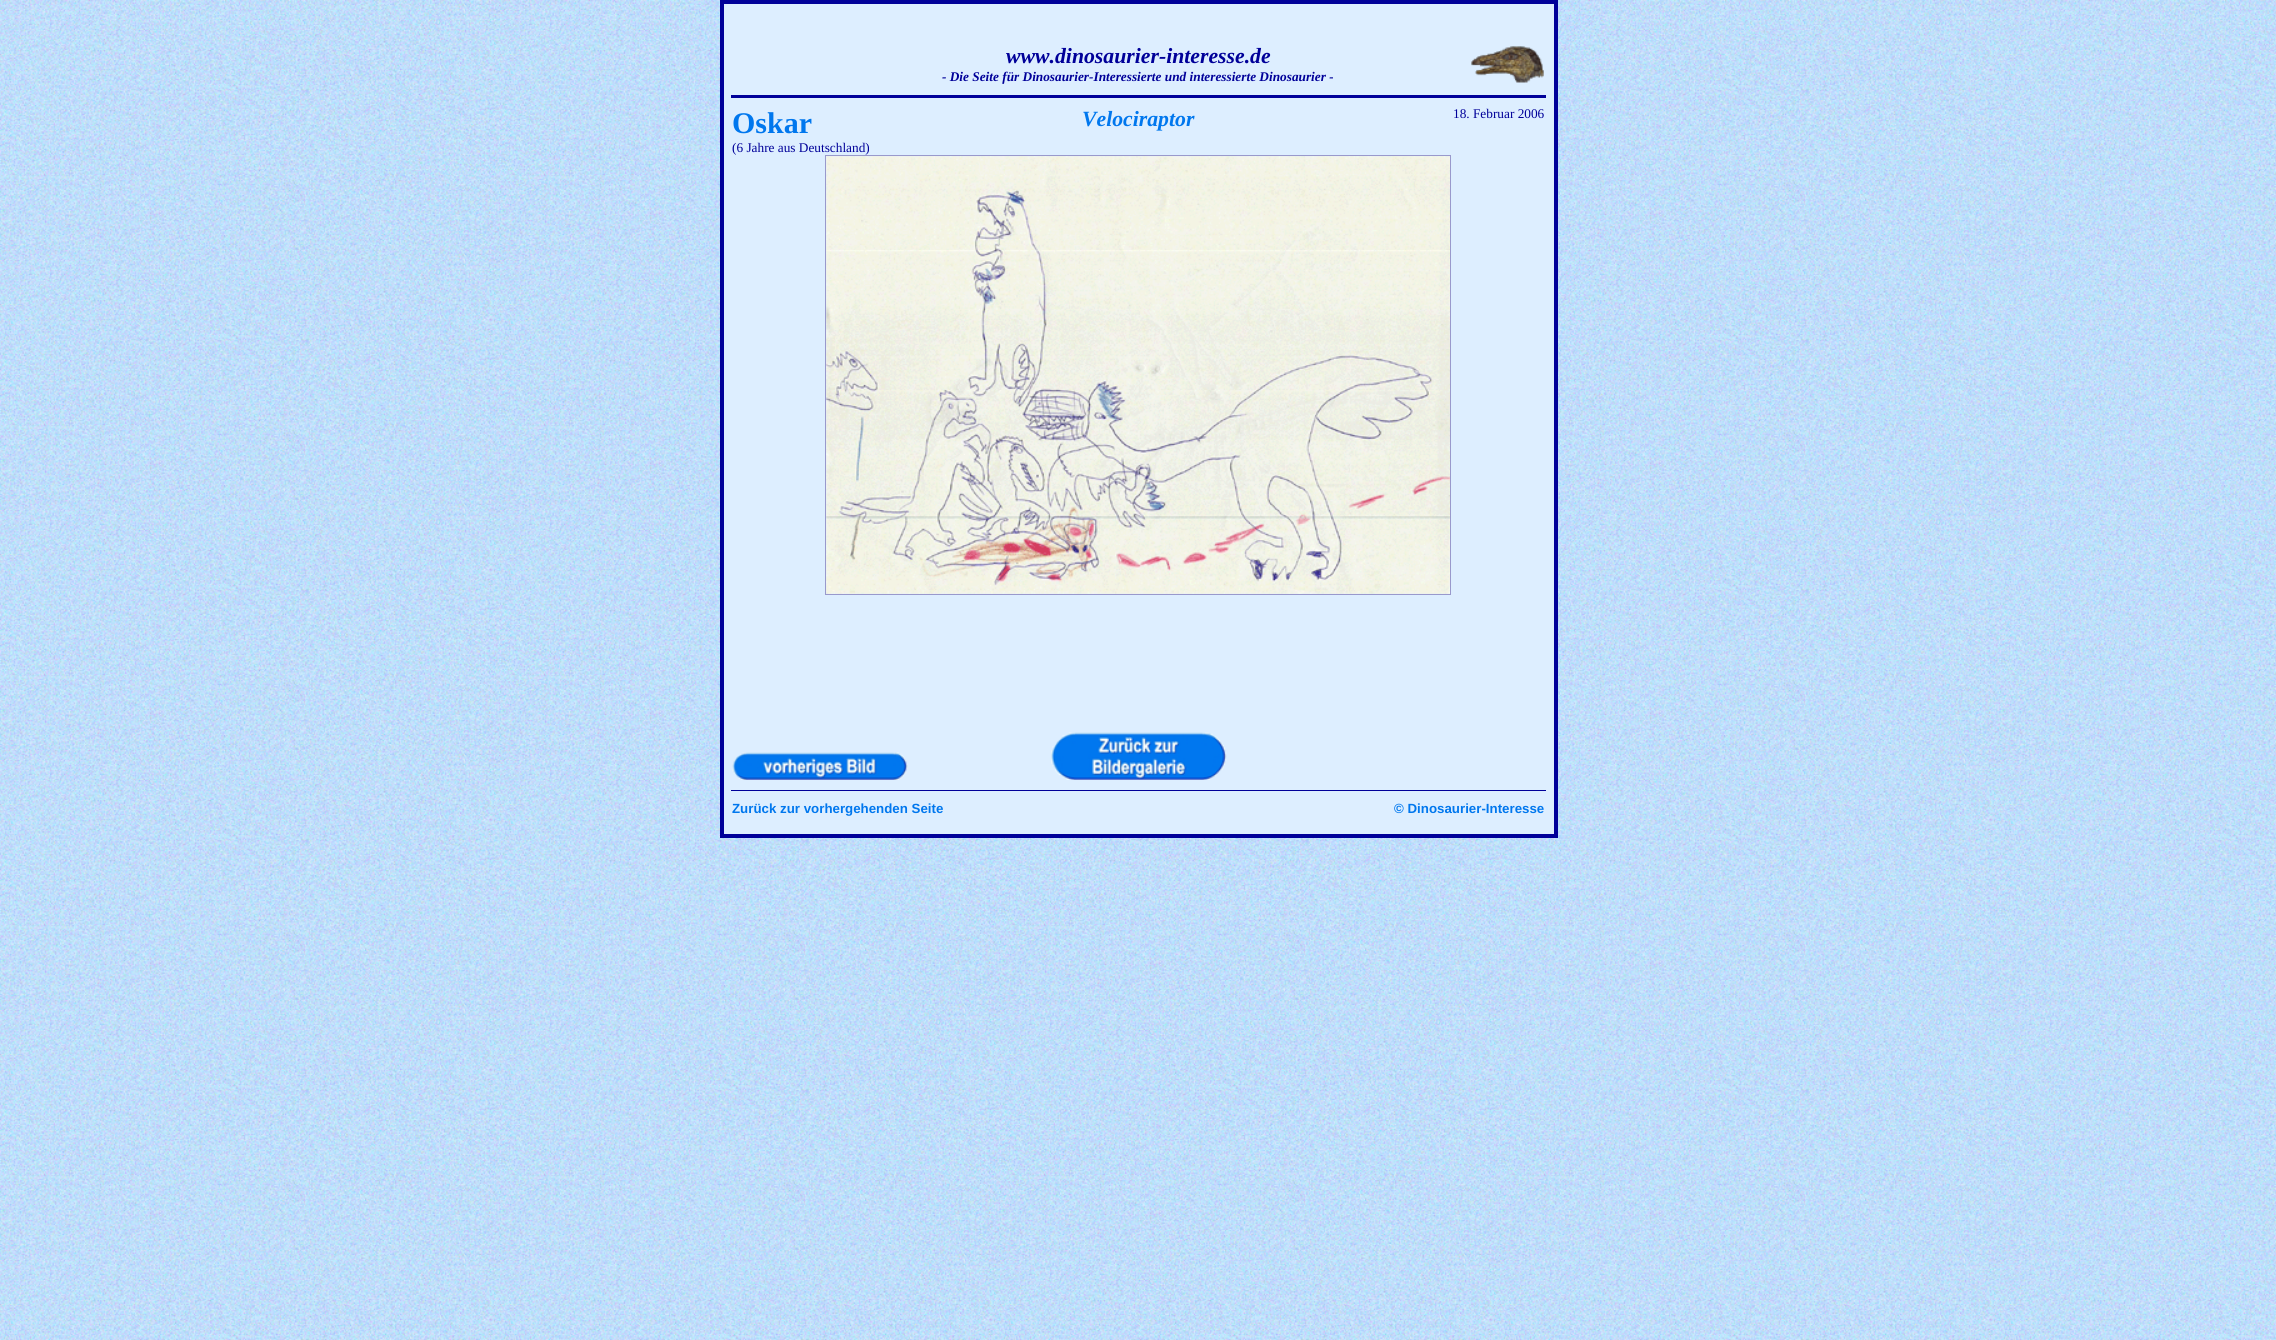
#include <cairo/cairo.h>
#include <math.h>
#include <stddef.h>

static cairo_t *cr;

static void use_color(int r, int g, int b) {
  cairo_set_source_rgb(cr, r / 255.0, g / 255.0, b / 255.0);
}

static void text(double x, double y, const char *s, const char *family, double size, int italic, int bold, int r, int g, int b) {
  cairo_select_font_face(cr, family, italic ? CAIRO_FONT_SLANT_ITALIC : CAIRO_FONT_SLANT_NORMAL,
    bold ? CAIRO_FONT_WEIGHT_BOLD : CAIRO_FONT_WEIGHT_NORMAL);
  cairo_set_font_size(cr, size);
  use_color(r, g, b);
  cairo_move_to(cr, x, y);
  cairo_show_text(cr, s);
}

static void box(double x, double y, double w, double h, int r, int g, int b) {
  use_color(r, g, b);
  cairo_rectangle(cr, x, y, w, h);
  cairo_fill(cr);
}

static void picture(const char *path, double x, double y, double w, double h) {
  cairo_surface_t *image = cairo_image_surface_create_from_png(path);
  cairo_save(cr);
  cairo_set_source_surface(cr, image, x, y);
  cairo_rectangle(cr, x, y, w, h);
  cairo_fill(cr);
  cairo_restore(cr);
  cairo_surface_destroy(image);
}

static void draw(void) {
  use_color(255, 255, 255);
  cairo_paint(cr);
  picture("img_01.png", 0, 0, 2276, 1340);
  box(724, 4, 830, 830, 221, 238, 255);
  cairo_rectangle(cr, 721.5, 1.5, 835, 835);
  use_color(0, 0, 153);
  cairo_set_line_width(cr, 3);
  cairo_stroke(cr);
  cairo_rectangle(cr, 723.5, 3.5, 831, 831);
  cairo_set_line_width(cr, 1);
  cairo_stroke(cr);
  picture("img_02.png", 1471, 46, 73, 37);
  box(731, 95, 815, 3, 0, 0, 153);
  cairo_rectangle(cr, 825.5, 155.5, 625, 439);
  use_color(153, 153, 204);
  cairo_stroke(cr);
  picture("img_03.png", 826, 156, 624, 438);
  picture("img_04.png", 732, 752, 176, 28);
  picture("img_05.png", 1051, 732, 176, 48);
  box(731, 790, 815, 1, 0, 0, 153);
  text(1006, 63, "www.dinosaurier-interesse.de", "Liberation Serif", 21.75, 1, 1, 0, 0, 153);
  text(942, 81, "- Die Seite für Dinosaurier-Interessierte und interessierte Dinosaurier -", "Liberation Serif", 13.3, 1, 1, 0, 0, 153);
  text(732, 133, "Oskar", "Liberation Serif", 30, 0, 1, 0, 119, 238);
  text(732, 152, "(6 Jahre aus Deutschland)", "Liberation Serif", 13.3, 0, 0, 0, 0, 153);
  text(1082, 126, "Velociraptor", "Liberation Serif", 21.75, 1, 1, 0, 119, 238);
  text(1453, 118, "18. Februar 2006", "Liberation Serif", 13.3, 0, 0, 0, 0, 153);
  text(732, 813, "Zurück zur vorhergehenden Seite", "Liberation Sans", 13.3, 0, 1, 0, 119, 238);
  text(1394, 813, "© Dinosaurier-Interesse", "Liberation Sans", 13.3, 0, 1, 0, 119, 238);
}

int main(void) {
  cairo_surface_t *surface = cairo_image_surface_create(CAIRO_FORMAT_RGB24, 2276, 1340);
  cr = cairo_create(surface);
  cairo_font_options_t *options = cairo_font_options_create();
  cairo_font_options_set_hint_metrics(options, CAIRO_HINT_METRICS_OFF);
  cairo_font_options_set_hint_style(options, CAIRO_HINT_STYLE_NONE);
  cairo_set_font_options(cr, options);
  cairo_set_miter_limit(cr, 4);
  draw();
  cairo_surface_write_to_png(surface, "out.png");
  cairo_font_options_destroy(options);
  cairo_destroy(cr);
  cairo_surface_destroy(surface);
  return 0;
}
